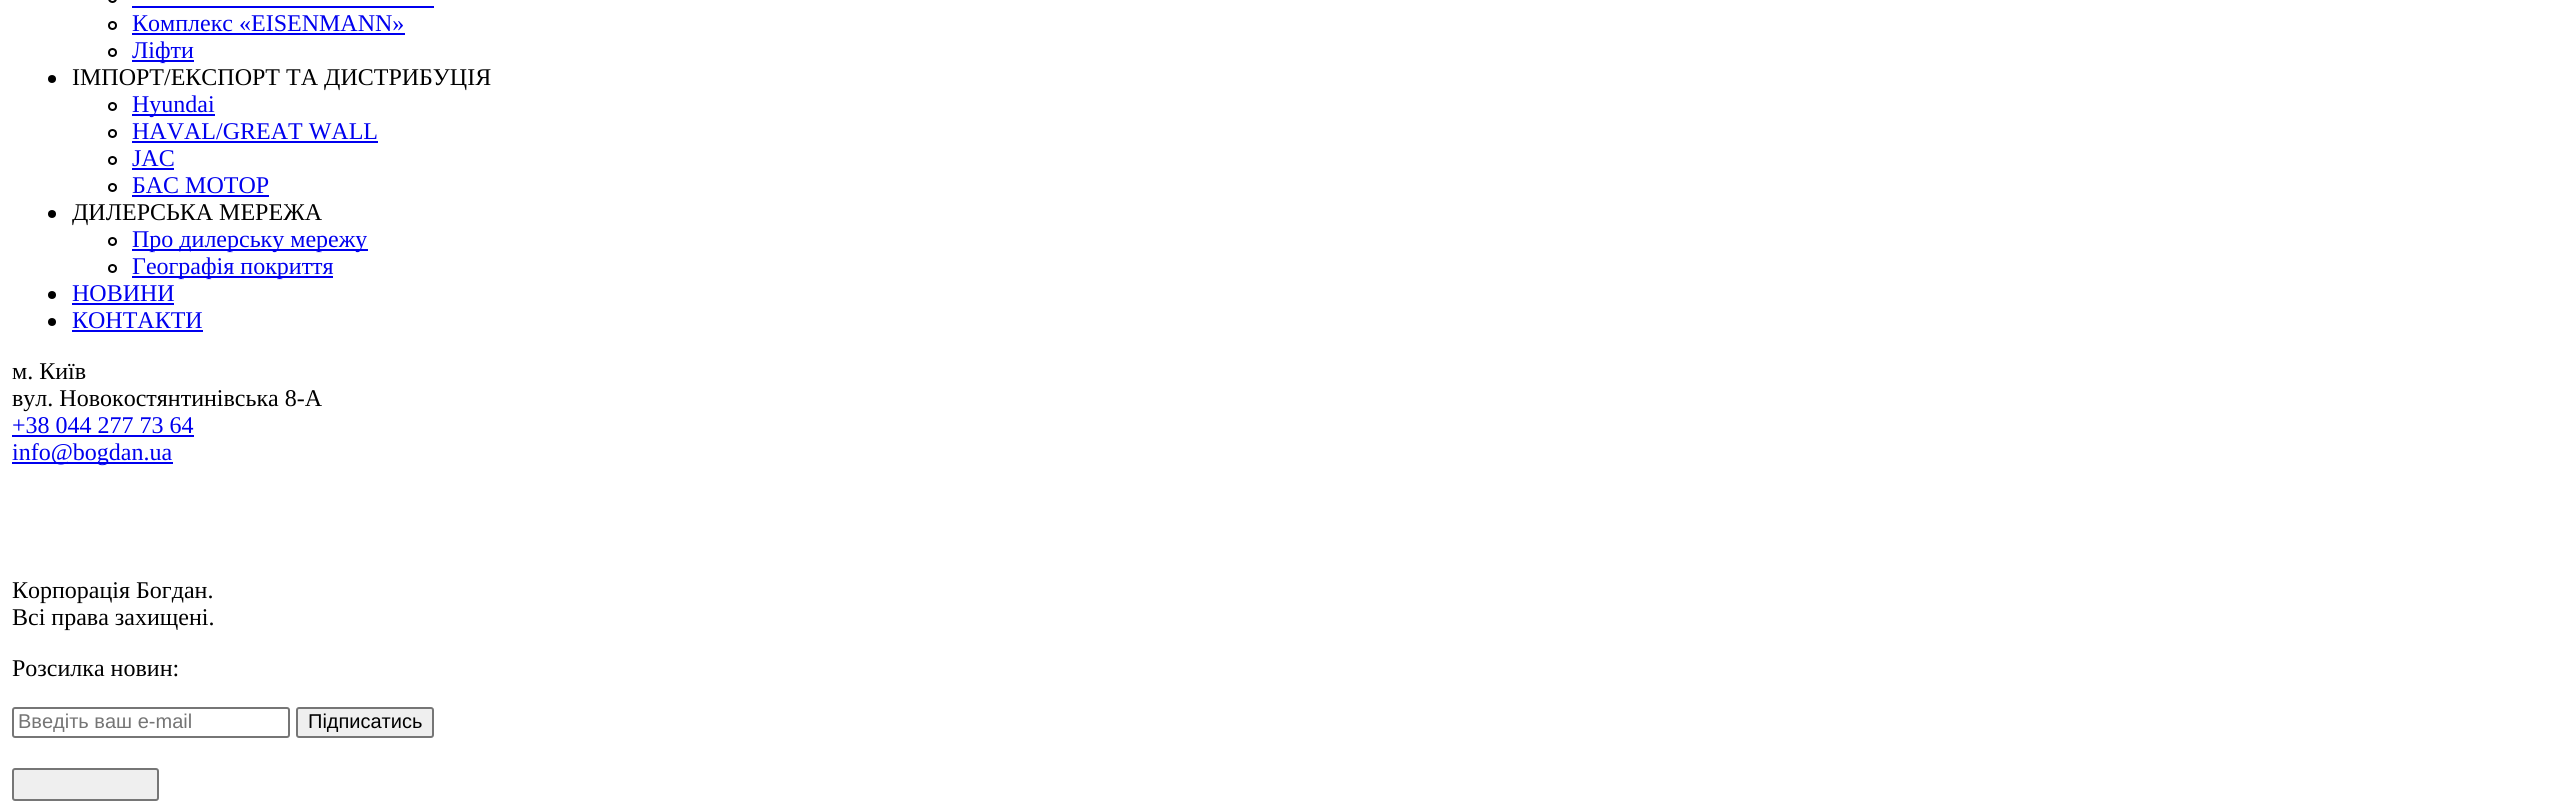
#include <cairo/cairo.h>
#include <math.h>
#include <stddef.h>

static cairo_t *cr;

static void use_color(int r, int g, int b) {
  cairo_set_source_rgb(cr, r / 255.0, g / 255.0, b / 255.0);
}

static void text(double x, double y, const char *s, const char *family, double size, int italic, int bold, int r, int g, int b) {
  cairo_select_font_face(cr, family, italic ? CAIRO_FONT_SLANT_ITALIC : CAIRO_FONT_SLANT_NORMAL,
    bold ? CAIRO_FONT_WEIGHT_BOLD : CAIRO_FONT_WEIGHT_NORMAL);
  cairo_set_font_size(cr, size);
  use_color(r, g, b);
  cairo_move_to(cr, x, y);
  cairo_show_text(cr, s);
}

static void box(double x, double y, double w, double h, int r, int g, int b) {
  use_color(r, g, b);
  cairo_rectangle(cr, x, y, w, h);
  cairo_fill(cr);
}

static void round_rect(double x, double y, double w, double h, double r) {
  cairo_new_sub_path(cr);
  cairo_arc(cr, x + w - r, y + h - r, r, 0, M_PI / 2);
  cairo_arc(cr, x + r, y + h - r, r, M_PI / 2, M_PI);
  cairo_arc(cr, x + r, y + r, r, M_PI, 1.5 * M_PI);
  cairo_arc(cr, x + w - r, y + r, r, 1.5 * M_PI, 2 * M_PI);
  cairo_close_path(cr);
}

static void draw(void) {
  use_color(255, 255, 255);
  cairo_paint(cr);
  cairo_arc(cr, 112.5, -1.5, 3.5, 0, 2 * M_PI);
  use_color(0, 0, 0);
  cairo_stroke(cr);
  box(132, 6, 302, 2, 0, 0, 238);
  cairo_arc(cr, 112.5, 25.5, 3.5, 0, 2 * M_PI);
  use_color(0, 0, 0);
  cairo_stroke(cr);
  box(132, 33, 273, 2, 0, 0, 238);
  cairo_arc(cr, 112.5, 52.5, 3.5, 0, 2 * M_PI);
  use_color(0, 0, 0);
  cairo_stroke(cr);
  box(132, 60, 62, 2, 0, 0, 238);
  use_color(0, 0, 0);
  cairo_arc(cr, 52, 79, 4, 0, 2 * M_PI);
  cairo_fill(cr);
  cairo_arc(cr, 112.5, 106.5, 3.5, 0, 2 * M_PI);
  cairo_stroke(cr);
  box(132, 114, 83, 2, 0, 0, 238);
  cairo_arc(cr, 112.5, 133.5, 3.5, 0, 2 * M_PI);
  use_color(0, 0, 0);
  cairo_stroke(cr);
  box(132, 141, 246, 2, 0, 0, 238);
  cairo_arc(cr, 112.5, 160.5, 3.5, 0, 2 * M_PI);
  use_color(0, 0, 0);
  cairo_stroke(cr);
  box(132, 168, 42, 2, 0, 0, 238);
  cairo_arc(cr, 112.5, 187.5, 3.5, 0, 2 * M_PI);
  use_color(0, 0, 0);
  cairo_stroke(cr);
  box(132, 195, 137, 2, 0, 0, 238);
  use_color(0, 0, 0);
  cairo_arc(cr, 52, 214, 4, 0, 2 * M_PI);
  cairo_fill(cr);
  cairo_arc(cr, 112.5, 241.5, 3.5, 0, 2 * M_PI);
  cairo_stroke(cr);
  box(132, 249, 236, 2, 0, 0, 238);
  cairo_arc(cr, 112.5, 268.5, 3.5, 0, 2 * M_PI);
  use_color(0, 0, 0);
  cairo_stroke(cr);
  box(132, 276, 201, 2, 0, 0, 238);
  use_color(0, 0, 0);
  cairo_arc(cr, 52, 295, 4, 0, 2 * M_PI);
  cairo_fill(cr);
  box(72, 303, 102, 2, 0, 0, 238);
  use_color(0, 0, 0);
  cairo_arc(cr, 52, 322, 4, 0, 2 * M_PI);
  cairo_fill(cr);
  box(72, 330, 131, 2, 0, 0, 238);
  box(12, 435, 182, 2, 0, 0, 238);
  box(12, 462, 161, 2, 0, 0, 238);
  round_rect(13, 708, 276, 29, 2);
  use_color(118, 118, 118);
  cairo_stroke(cr);
  use_color(239, 239, 239);
  round_rect(297, 708, 136, 29, 2);
  cairo_fill_preserve(cr);
  use_color(118, 118, 118);
  cairo_stroke(cr);
  use_color(239, 239, 239);
  round_rect(13, 769, 145, 31, 2);
  cairo_fill_preserve(cr);
  use_color(118, 118, 118);
  cairo_stroke(cr);
  text(132, 31, "Комплекс «EISENMANN»", "Liberation Serif", 24, 0, 0, 0, 0, 238);
  text(132, 58, "Ліфти", "Liberation Serif", 24, 0, 0, 0, 0, 238);
  text(72, 85, "ІМПОРТ/ЕКСПОРТ ТА ДИСТРИБУЦІЯ", "Liberation Serif", 24, 0, 0, 0, 0, 0);
  text(132, 112, "Hyundai", "Liberation Serif", 24, 0, 0, 0, 0, 238);
  text(132, 139, "HAVAL/GREAT WALL", "Liberation Serif", 24, 0, 0, 0, 0, 238);
  text(132, 166, "JAC", "Liberation Serif", 24, 0, 0, 0, 0, 238);
  text(132, 193, "БАС МОТОР", "Liberation Serif", 24, 0, 0, 0, 0, 238);
  text(72, 220, "ДИЛЕРСЬКА МЕРЕЖА", "Liberation Serif", 24, 0, 0, 0, 0, 0);
  text(132, 247, "Про дилерську мережу", "Liberation Serif", 24, 0, 0, 0, 0, 238);
  text(132, 274, "Географія покриття", "Liberation Serif", 24, 0, 0, 0, 0, 238);
  text(72, 301, "НОВИНИ", "Liberation Serif", 24, 0, 0, 0, 0, 238);
  text(72, 328, "КОНТАКТИ", "Liberation Serif", 24, 0, 0, 0, 0, 238);
  text(12, 379, "м. Київ", "Liberation Serif", 24, 0, 0, 0, 0, 0);
  text(12, 406, "вул. Новокостянтинівська 8-А", "Liberation Serif", 24, 0, 0, 0, 0, 0);
  text(12, 433, "+38 044 277 73 64", "Liberation Serif", 24, 0, 0, 0, 0, 238);
  text(12, 460, "info@bogdan.ua", "Liberation Serif", 24, 0, 0, 0, 0, 238);
  text(12, 598, "Корпорація Богдан.", "Liberation Serif", 24, 0, 0, 0, 0, 0);
  text(12, 625, "Всі права захищені.", "Liberation Serif", 24, 0, 0, 0, 0, 0);
  text(12, 676, "Розсилка новин:", "Liberation Serif", 24, 0, 0, 0, 0, 0);
  text(18, 728, "Введіть ваш e-mail", "Liberation Sans", 20, 0, 0, 117, 117, 117);
  text(308, 728, "Підписатись", "Liberation Sans", 20, 0, 0, 0, 0, 0);
}

int main(void) {
  cairo_surface_t *surface = cairo_image_surface_create(CAIRO_FORMAT_RGB24, 2571, 812);
  cr = cairo_create(surface);
  cairo_font_options_t *options = cairo_font_options_create();
  cairo_font_options_set_hint_metrics(options, CAIRO_HINT_METRICS_OFF);
  cairo_font_options_set_hint_style(options, CAIRO_HINT_STYLE_NONE);
  cairo_set_font_options(cr, options);
  cairo_set_miter_limit(cr, 4);
  draw();
  cairo_surface_write_to_png(surface, "out.png");
  cairo_font_options_destroy(options);
  cairo_destroy(cr);
  cairo_surface_destroy(surface);
  return 0;
}
